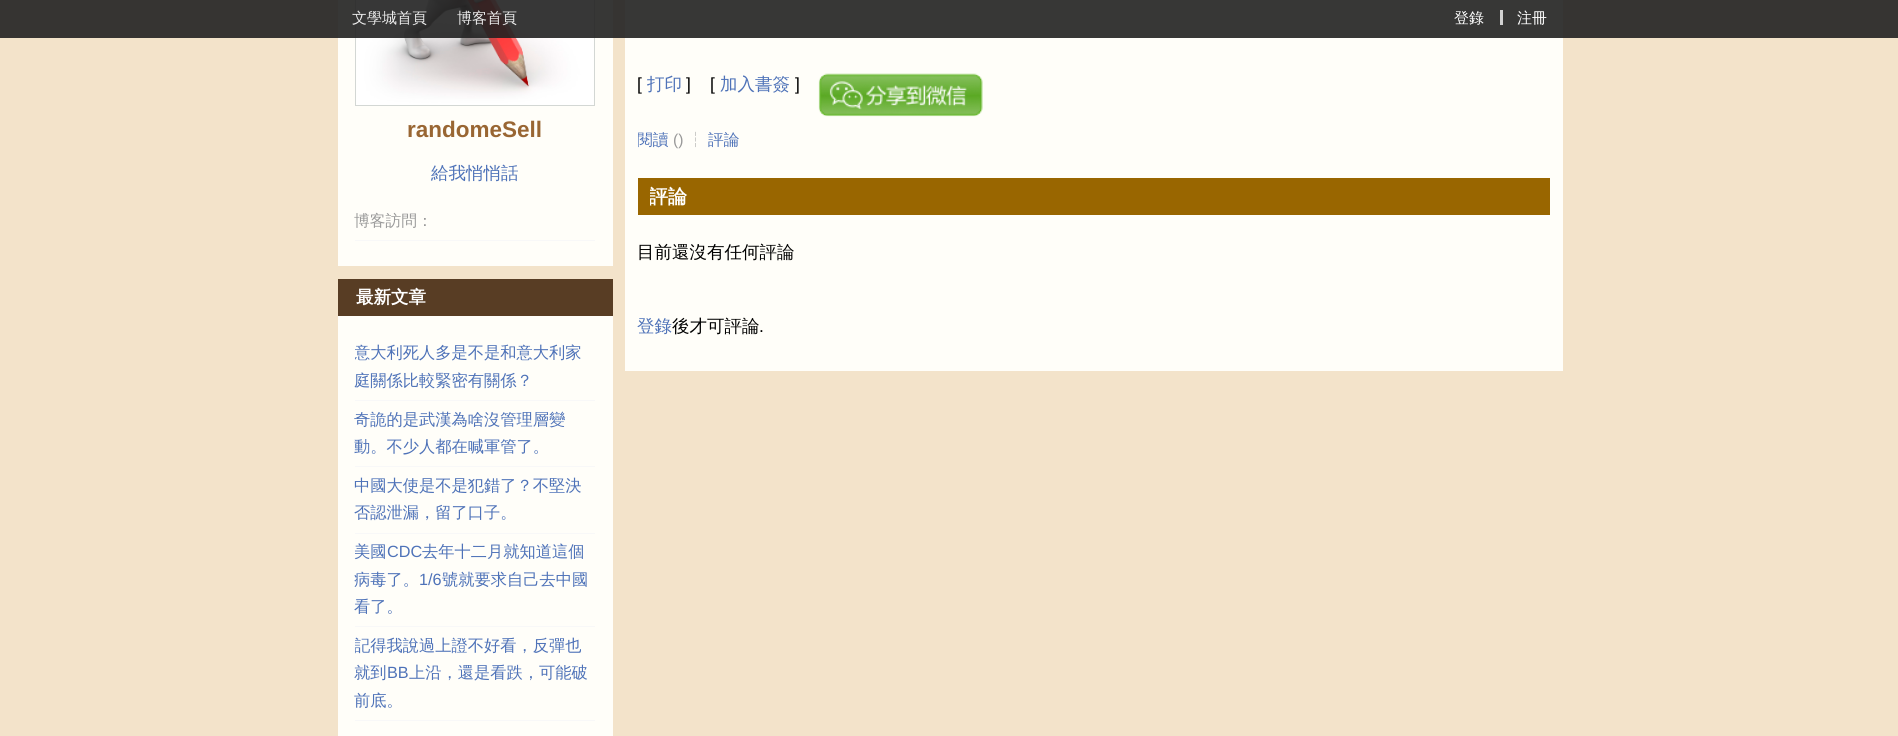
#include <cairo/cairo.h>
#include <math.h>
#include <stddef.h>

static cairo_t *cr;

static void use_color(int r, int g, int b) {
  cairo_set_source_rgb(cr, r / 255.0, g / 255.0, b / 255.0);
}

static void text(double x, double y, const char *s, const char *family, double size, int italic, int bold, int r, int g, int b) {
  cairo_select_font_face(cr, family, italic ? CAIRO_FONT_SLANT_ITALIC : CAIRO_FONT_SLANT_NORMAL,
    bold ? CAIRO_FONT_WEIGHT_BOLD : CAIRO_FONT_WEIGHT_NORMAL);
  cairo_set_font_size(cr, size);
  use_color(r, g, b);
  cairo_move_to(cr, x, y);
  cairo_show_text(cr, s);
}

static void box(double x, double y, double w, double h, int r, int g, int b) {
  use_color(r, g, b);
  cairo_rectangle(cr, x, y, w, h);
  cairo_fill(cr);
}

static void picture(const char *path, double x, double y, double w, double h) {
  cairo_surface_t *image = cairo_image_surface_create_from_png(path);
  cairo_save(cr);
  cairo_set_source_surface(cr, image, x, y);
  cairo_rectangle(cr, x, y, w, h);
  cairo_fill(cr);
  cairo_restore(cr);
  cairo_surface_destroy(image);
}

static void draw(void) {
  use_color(243, 227, 202);
  cairo_paint(cr);
  box(338, 0, 275, 266, 255, 254, 249);
  cairo_rectangle(cr, 355.5, -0.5, 239, 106);
  use_color(211, 215, 212);
  cairo_set_line_width(cr, 1);
  cairo_stroke(cr);
  picture("img_01.png", 356, 0, 238, 105);
  box(625, 0, 938, 371, 255, 254, 249);
  cairo_set_source_rgba(cr, 0.133, 0.133, 0.133, 0.9);
  cairo_rectangle(cr, 0, 0, 1898, 38);
  cairo_fill(cr);
  box(1500, 10, 3, 15, 209, 209, 209);
  box(355, 240, 240, 1, 248, 248, 248);
  box(338, 279, 275, 37, 88, 61, 36);
  box(338, 316, 275, 420, 255, 254, 249);
  box(355, 400, 240, 1, 248, 248, 248);
  box(355, 466, 240, 1, 248, 248, 248);
  box(355, 533, 240, 1, 248, 248, 248);
  box(355, 626, 240, 1, 248, 248, 248);
  box(355, 720, 240, 1, 248, 248, 248);
  picture("img_02.png", 818, 73, 165, 44);
  box(638, 178, 912, 37, 153, 102, 0);
  text(352, 23, "文學城首頁", "WenQuanYi Zen Hei Medium", 15, 0, 0, 235, 235, 235);
  text(457, 23, "博客首頁", "WenQuanYi Zen Hei Medium", 15, 0, 0, 235, 235, 235);
  text(1454, 23, "登錄", "WenQuanYi Zen Hei Medium", 15, 0, 0, 255, 255, 255);
  text(1517, 23, "注冊", "WenQuanYi Zen Hei Medium", 15, 0, 0, 255, 255, 255);
  text(407, 137, "randomeSell", "Liberation Sans", 22.5, 0, 1, 153, 102, 51);
  text(431, 179, "給我悄悄話", "WenQuanYi Zen Hei Medium", 17.5, 0, 0, 78, 114, 184);
  text(354, 226, "博客訪問：", "WenQuanYi Zen Hei Medium", 15.75, 0, 0, 153, 153, 153);
  text(356, 303, "最新文章", "WenQuanYi Zen Hei", 17.5, 0, 1, 255, 255, 255);
  cairo_save(cr);
  cairo_rectangle(cr, 355, 340, 240, 55);
  cairo_clip(cr);
  text(354, 358, "意大利死人多是不是和意大利家", "WenQuanYi Zen Hei Medium", 16.25, 0, 0, 78, 114, 184);
  cairo_restore(cr);
  text(354, 386, "庭關係比較緊密有關係？", "WenQuanYi Zen Hei Medium", 16.25, 0, 0, 78, 114, 184);
  text(354, 425, "奇詭的是武漢為啥沒管理層變", "WenQuanYi Zen Hei Medium", 16.25, 0, 0, 78, 114, 184);
  text(354, 452, "動。不少人都在喊軍管了。", "WenQuanYi Zen Hei Medium", 16.25, 0, 0, 78, 114, 184);
  text(354, 491, "中國大使是不是犯錯了？不堅決", "WenQuanYi Zen Hei Medium", 16.25, 0, 0, 78, 114, 184);
  text(354, 518, "否認泄漏，留了口子。", "WenQuanYi Zen Hei Medium", 16.25, 0, 0, 78, 114, 184);
  text(354, 557, "美國", "WenQuanYi Zen Hei Medium", 16.25, 0, 0, 78, 114, 184);
  text(387, 557, "CDC", "Liberation Sans", 16.25, 0, 0, 78, 114, 184);
  text(422, 557, "去年十二月就知道這個", "WenQuanYi Zen Hei Medium", 16.25, 0, 0, 78, 114, 184);
  text(354, 585, "病毒了。", "WenQuanYi Zen Hei Medium", 16.25, 0, 0, 78, 114, 184);
  text(419, 585, "1/6", "Liberation Sans", 16.25, 0, 0, 78, 114, 184);
  text(442, 585, "號就要求自己去中國", "WenQuanYi Zen Hei Medium", 16.25, 0, 0, 78, 114, 184);
  text(354, 612, "看了。", "WenQuanYi Zen Hei Medium", 16.25, 0, 0, 78, 114, 184);
  cairo_save(cr);
  cairo_rectangle(cr, 355, 633, 240, 82);
  cairo_clip(cr);
  text(354, 651, "記得我說過上證不好看，反彈也", "WenQuanYi Zen Hei Medium", 16.25, 0, 0, 78, 114, 184);
  cairo_restore(cr);
  text(354, 678, "就到", "WenQuanYi Zen Hei Medium", 16.25, 0, 0, 78, 114, 184);
  text(387, 678, "BB", "Liberation Sans", 16.25, 0, 0, 78, 114, 184);
  text(409, 678, "上沿，還是看跌，可能破", "WenQuanYi Zen Hei Medium", 16.25, 0, 0, 78, 114, 184);
  text(354, 706, "前底。", "WenQuanYi Zen Hei Medium", 16.25, 0, 0, 78, 114, 184);
  text(637, 90, "[", "Liberation Sans", 17.5, 0, 0, 0, 0, 0);
  text(647, 90, "打印", "WenQuanYi Zen Hei Medium", 17.5, 0, 0, 78, 114, 184);
  text(686, 90, "]", "Liberation Sans", 17.5, 0, 0, 0, 0, 0);
  text(710, 90, "[", "Liberation Sans", 17.5, 0, 0, 0, 0, 0);
  text(720, 90, "加入書簽", "WenQuanYi Zen Hei Medium", 17.5, 0, 0, 78, 114, 184);
  text(795, 90, "]", "Liberation Sans", 17.5, 0, 0, 0, 0, 0);
  cairo_save(cr);
  cairo_rectangle(cr, 638, 129, 912, 24);
  cairo_clip(cr);
  text(637, 145, "閱讀", "WenQuanYi Zen Hei Medium", 15.75, 0, 0, 78, 114, 184);
  cairo_restore(cr);
  text(673, 145, "()", "Liberation Sans", 15.75, 0, 0, 153, 153, 153);
  text(688, 145, "┆", "WenQuanYi Zen Hei Medium", 15.75, 0, 0, 153, 153, 153);
  text(708, 145, "評論", "WenQuanYi Zen Hei Medium", 15.75, 0, 0, 78, 114, 184);
  cairo_save(cr);
  cairo_rectangle(cr, 650, 178, 900, 37);
  cairo_clip(cr);
  text(649, 203, "評論", "WenQuanYi Zen Hei", 19, 0, 1, 255, 255, 255);
  cairo_restore(cr);
  text(637, 258, "目前還沒有任何評論", "WenQuanYi Zen Hei Medium", 17.5, 0, 0, 0, 0, 0);
  text(637, 332, "登錄", "WenQuanYi Zen Hei Medium", 17.5, 0, 0, 78, 114, 184);
  text(672, 332, "後才可評論", "WenQuanYi Zen Hei Medium", 17.5, 0, 0, 0, 0, 0);
  text(759, 332, ".", "Liberation Sans", 17.5, 0, 0, 0, 0, 0);
}

int main(void) {
  cairo_surface_t *surface = cairo_image_surface_create(CAIRO_FORMAT_RGB24, 1898, 736);
  cr = cairo_create(surface);
  cairo_font_options_t *options = cairo_font_options_create();
  cairo_font_options_set_hint_metrics(options, CAIRO_HINT_METRICS_OFF);
  cairo_font_options_set_hint_style(options, CAIRO_HINT_STYLE_NONE);
  cairo_set_font_options(cr, options);
  cairo_set_miter_limit(cr, 4);
  draw();
  cairo_surface_write_to_png(surface, "out.png");
  cairo_font_options_destroy(options);
  cairo_destroy(cr);
  cairo_surface_destroy(surface);
  return 0;
}
